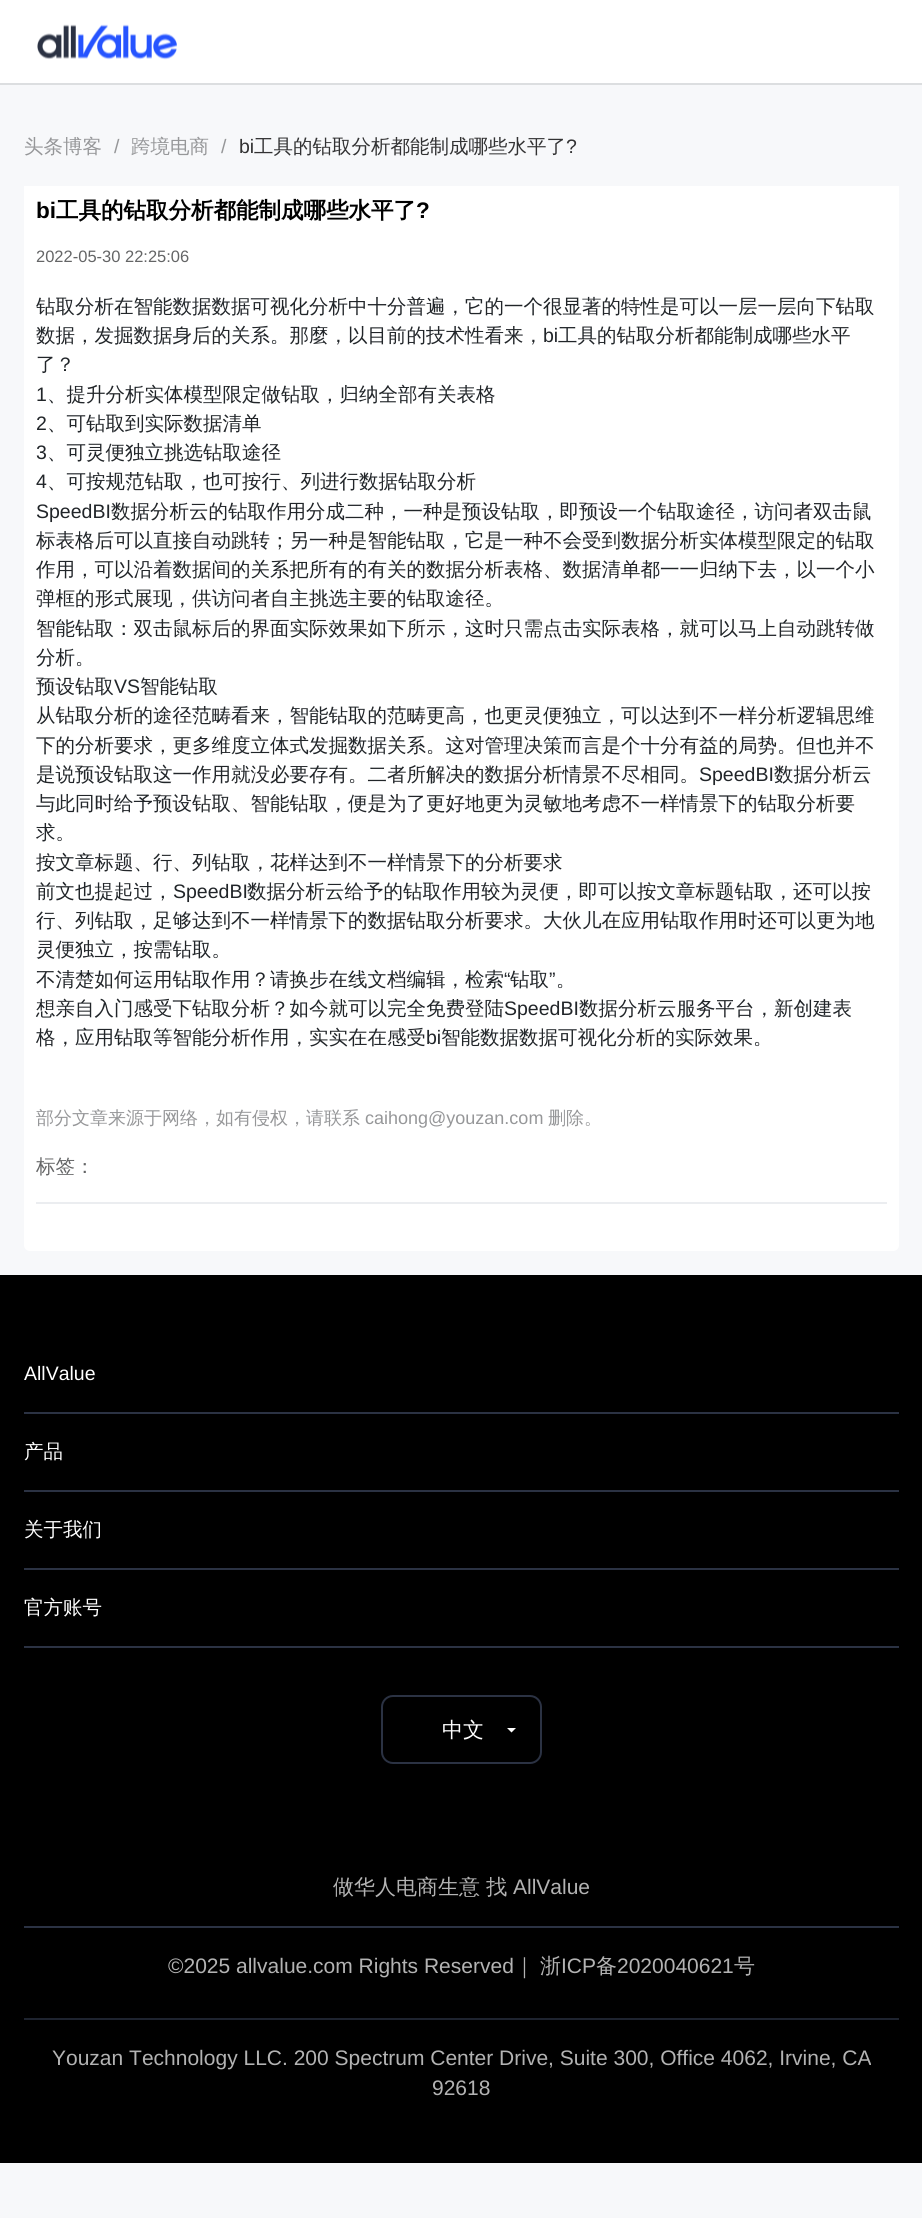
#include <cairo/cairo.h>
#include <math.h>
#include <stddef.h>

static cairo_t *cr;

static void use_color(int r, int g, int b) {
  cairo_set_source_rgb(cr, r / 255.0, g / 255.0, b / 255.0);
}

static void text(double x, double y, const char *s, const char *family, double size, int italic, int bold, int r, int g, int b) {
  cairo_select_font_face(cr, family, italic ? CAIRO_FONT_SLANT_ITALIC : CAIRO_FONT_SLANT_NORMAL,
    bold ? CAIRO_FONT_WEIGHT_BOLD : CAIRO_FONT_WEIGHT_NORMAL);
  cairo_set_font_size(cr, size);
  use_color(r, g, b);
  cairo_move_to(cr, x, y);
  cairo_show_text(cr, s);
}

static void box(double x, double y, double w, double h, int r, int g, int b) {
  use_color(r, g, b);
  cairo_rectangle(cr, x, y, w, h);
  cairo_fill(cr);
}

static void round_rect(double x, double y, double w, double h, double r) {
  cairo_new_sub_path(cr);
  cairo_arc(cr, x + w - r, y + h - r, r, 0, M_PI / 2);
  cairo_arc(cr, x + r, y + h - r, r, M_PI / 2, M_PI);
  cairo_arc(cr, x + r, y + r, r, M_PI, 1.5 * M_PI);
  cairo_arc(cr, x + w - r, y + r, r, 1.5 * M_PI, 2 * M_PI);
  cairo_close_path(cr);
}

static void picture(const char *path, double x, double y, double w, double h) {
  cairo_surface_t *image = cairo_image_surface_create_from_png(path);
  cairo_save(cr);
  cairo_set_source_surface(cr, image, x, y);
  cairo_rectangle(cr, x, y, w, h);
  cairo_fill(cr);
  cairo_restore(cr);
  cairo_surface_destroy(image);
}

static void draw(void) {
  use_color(247, 248, 250);
  cairo_paint(cr);
  box(0, 0, 922, 83, 255, 255, 255);
  box(0, 83, 922, 2, 220, 222, 224);
  picture("img_01.png", 37, 24, 140, 36);
  use_color(255, 255, 255);
  cairo_new_path(cr);
  cairo_move_to(cr, 24, 186);
  cairo_line_to(cr, 899, 186);
  cairo_line_to(cr, 899, 1245);
  cairo_curve_to(cr, 899, 1248.5, 896.5, 1251, 893, 1251);
  cairo_line_to(cr, 30, 1251);
  cairo_curve_to(cr, 26.5, 1251, 24, 1248.5, 24, 1245);
  cairo_close_path(cr);
  cairo_fill(cr);
  box(36, 1202, 851, 2, 235, 237, 240);
  box(0, 1275, 922, 888, 0, 0, 0);
  box(24, 1412, 875, 2, 43, 50, 67);
  box(24, 1490, 875, 2, 43, 50, 67);
  box(24, 1568, 875, 2, 43, 50, 67);
  box(24, 1646, 875, 2, 43, 50, 67);
  round_rect(382, 1696, 159, 67, 11);
  cairo_stroke(cr);
  use_color(255, 255, 255);
  cairo_new_path(cr);
  cairo_move_to(cr, 507, 1728);
  cairo_line_to(cr, 516, 1728);
  cairo_line_to(cr, 511.5, 1732.5);
  cairo_close_path(cr);
  cairo_fill(cr);
  box(24, 1926, 875, 2, 43, 50, 67);
  box(24, 2018, 875, 2, 30, 35, 47);
  text(24, 153, "头条博客", "WenQuanYi Zen Hei Medium", 19.5, 0, 0, 150, 151, 153);
  text(114, 153, "/", "Liberation Sans", 19.5, 0, 0, 150, 151, 153);
  text(131, 153, "跨境电商", "WenQuanYi Zen Hei Medium", 19.5, 0, 0, 150, 151, 153);
  text(221, 153, "/", "Liberation Sans", 19.5, 0, 0, 150, 151, 153);
  text(239, 153, "bi", "Liberation Sans", 19.5, 0, 0, 50, 50, 51);
  text(254, 153, "工具的钻取分析都能制成哪些水平了", "WenQuanYi Zen Hei Medium", 19.5, 0, 0, 50, 50, 51);
  text(566, 153, "?", "Liberation Sans", 19.5, 0, 0, 50, 50, 51);
  text(36, 218, "bi", "Liberation Sans", 22.5, 0, 1, 0, 0, 0);
  text(56, 218, "工具的钻取分析都能制成哪些水平了", "WenQuanYi Zen Hei", 22.5, 0, 1, 0, 0, 0);
  text(416, 218, "?", "Liberation Sans", 22.5, 0, 1, 0, 0, 0);
  text(36, 262, "2022-05-30 22:25:06", "Liberation Sans", 16.5, 0, 0, 100, 101, 102);
  text(36, 313, "钻取分析在智能数据数据可视化分析中十分普遍，它的一个很显著的特性是可以一层一层向下钻取", "WenQuanYi Zen Hei Medium", 19.5, 0, 0, 33, 37, 41);
  text(36, 342, "数据，发掘数据身后的关系。那麼，以目前的技术性看来，", "WenQuanYi Zen Hei Medium", 19.5, 0, 0, 33, 37, 41);
  text(543, 342, "bi", "Liberation Sans", 19.5, 0, 0, 33, 37, 41);
  text(558, 342, "工具的钻取分析都能制成哪些水平", "WenQuanYi Zen Hei Medium", 19.5, 0, 0, 33, 37, 41);
  text(36, 371, "了？", "WenQuanYi Zen Hei Medium", 19.5, 0, 0, 33, 37, 41);
  text(36, 401, "1", "Liberation Sans", 19.5, 0, 0, 33, 37, 41);
  text(47, 401, "、提升分析实体模型限定做钻取，归纳全部有关表格", "WenQuanYi Zen Hei Medium", 19.5, 0, 0, 33, 37, 41);
  text(36, 430, "2", "Liberation Sans", 19.5, 0, 0, 33, 37, 41);
  text(47, 430, "、可钻取到实际数据清单", "WenQuanYi Zen Hei Medium", 19.5, 0, 0, 33, 37, 41);
  text(36, 459, "3", "Liberation Sans", 19.5, 0, 0, 33, 37, 41);
  text(47, 459, "、可灵便独立挑选钻取途径", "WenQuanYi Zen Hei Medium", 19.5, 0, 0, 33, 37, 41);
  text(36, 488, "4", "Liberation Sans", 19.5, 0, 0, 33, 37, 41);
  text(47, 488, "、可按规范钻取，也可按行、列进行数据钻取分析", "WenQuanYi Zen Hei Medium", 19.5, 0, 0, 33, 37, 41);
  text(36, 518, "SpeedBI", "Liberation Sans", 19.5, 0, 0, 33, 37, 41);
  text(111, 518, "数据分析云的钻取作用分成二种，一种是预设钻取，即预设一个钻取途径，访问者双击鼠", "WenQuanYi Zen Hei Medium", 19.5, 0, 0, 33, 37, 41);
  text(36, 547, "标表格后可以直接自动跳转；另一种是智能钻取，它是一种不会受到数据分析实体模型限定的钻取", "WenQuanYi Zen Hei Medium", 19.5, 0, 0, 33, 37, 41);
  text(36, 576, "作用，可以沿着数据间的关系把所有的有关的数据分析表格、数据清单都一一归纳下去，以一个小", "WenQuanYi Zen Hei Medium", 19.5, 0, 0, 33, 37, 41);
  text(36, 605, "弹框的形式展现，供访问者自主挑选主要的钻取途径。", "WenQuanYi Zen Hei Medium", 19.5, 0, 0, 33, 37, 41);
  text(36, 635, "智能钻取：双击鼠标后的界面实际效果如下所示，这时只需点击实际表格，就可以马上自动跳转做", "WenQuanYi Zen Hei Medium", 19.5, 0, 0, 33, 37, 41);
  text(36, 664, "分析。", "WenQuanYi Zen Hei Medium", 19.5, 0, 0, 33, 37, 41);
  text(36, 693, "预设钻取", "WenQuanYi Zen Hei Medium", 19.5, 0, 0, 33, 37, 41);
  text(114, 693, "VS", "Liberation Sans", 19.5, 0, 0, 33, 37, 41);
  text(140, 693, "智能钻取", "WenQuanYi Zen Hei Medium", 19.5, 0, 0, 33, 37, 41);
  text(36, 722, "从钻取分析的途径范畴看来，智能钻取的范畴更高，也更灵便独立，可以达到不一样分析逻辑思维", "WenQuanYi Zen Hei Medium", 19.5, 0, 0, 33, 37, 41);
  text(36, 752, "下的分析要求，更多维度立体式发掘数据关系。这对管理决策而言是个十分有益的局势。但也并不", "WenQuanYi Zen Hei Medium", 19.5, 0, 0, 33, 37, 41);
  text(36, 781, "是说预设钻取这一作用就没必要存有。二者所解决的数据分析情景不尽相同。", "WenQuanYi Zen Hei Medium", 19.5, 0, 0, 33, 37, 41);
  text(699, 781, "SpeedBI", "Liberation Sans", 19.5, 0, 0, 33, 37, 41);
  text(774, 781, "数据分析云", "WenQuanYi Zen Hei Medium", 19.5, 0, 0, 33, 37, 41);
  text(36, 810, "与此同时给予预设钻取、智能钻取，便是为了更好地更为灵敏地考虑不一样情景下的钻取分析要", "WenQuanYi Zen Hei Medium", 19.5, 0, 0, 33, 37, 41);
  text(36, 839, "求。", "WenQuanYi Zen Hei Medium", 19.5, 0, 0, 33, 37, 41);
  text(36, 869, "按文章标题、行、列钻取，花样达到不一样情景下的分析要求", "WenQuanYi Zen Hei Medium", 19.5, 0, 0, 33, 37, 41);
  text(36, 898, "前文也提起过，", "WenQuanYi Zen Hei Medium", 19.5, 0, 0, 33, 37, 41);
  text(173, 898, "SpeedBI", "Liberation Sans", 19.5, 0, 0, 33, 37, 41);
  text(247, 898, "数据分析云给予的钻取作用较为灵便，即可以按文章标题钻取，还可以按", "WenQuanYi Zen Hei Medium", 19.5, 0, 0, 33, 37, 41);
  text(36, 927, "行、列钻取，足够达到不一样情景下的数据钻取分析要求。大伙儿在应用钻取作用时还可以更为地", "WenQuanYi Zen Hei Medium", 19.5, 0, 0, 33, 37, 41);
  text(36, 956, "灵便独立，按需钻取。", "WenQuanYi Zen Hei Medium", 19.5, 0, 0, 33, 37, 41);
  text(36, 986, "不清楚如何运用钻取作用？请换步在线文档编辑，检索", "WenQuanYi Zen Hei Medium", 19.5, 0, 0, 33, 37, 41);
  text(504, 986, "“", "Liberation Sans", 19.5, 0, 0, 33, 37, 41);
  text(510, 986, "钻取", "WenQuanYi Zen Hei Medium", 19.5, 0, 0, 33, 37, 41);
  text(549, 986, "”", "Liberation Sans", 19.5, 0, 0, 33, 37, 41);
  text(556, 986, "。", "WenQuanYi Zen Hei Medium", 19.5, 0, 0, 33, 37, 41);
  text(36, 1015, "想亲自入门感受下钻取分析？如今就可以完全免费登陆", "WenQuanYi Zen Hei Medium", 19.5, 0, 0, 33, 37, 41);
  text(504, 1015, "SpeedBI", "Liberation Sans", 19.5, 0, 0, 33, 37, 41);
  text(579, 1015, "数据分析云服务平台，新创建表", "WenQuanYi Zen Hei Medium", 19.5, 0, 0, 33, 37, 41);
  text(36, 1044, "格，应用钻取等智能分析作用，实实在在感受", "WenQuanYi Zen Hei Medium", 19.5, 0, 0, 33, 37, 41);
  text(426, 1044, "bi", "Liberation Sans", 19.5, 0, 0, 33, 37, 41);
  text(441, 1044, "智能数据数据可视化分析的实际效果。", "WenQuanYi Zen Hei Medium", 19.5, 0, 0, 33, 37, 41);
  text(36, 1124, "部分文章来源于网络，如有侵权，请联系", "WenQuanYi Zen Hei Medium", 18, 0, 0, 150, 151, 153);
  text(365, 1124, "caihong@youzan.com", "Liberation Sans", 18, 0, 0, 150, 151, 153);
  text(548, 1124, "删除。", "WenQuanYi Zen Hei Medium", 18, 0, 0, 150, 151, 153);
  text(36, 1173, "标签：", "WenQuanYi Zen Hei Medium", 19.5, 0, 0, 100, 101, 102);
  text(24, 1380, "AllValue", "Liberation Sans", 19.5, 0, 0, 255, 255, 255);
  text(24, 1458, "产品", "WenQuanYi Zen Hei Medium", 19.5, 0, 0, 255, 255, 255);
  text(24, 1536, "关于我们", "WenQuanYi Zen Hei Medium", 19.5, 0, 0, 255, 255, 255);
  text(24, 1614, "官方账号", "WenQuanYi Zen Hei Medium", 19.5, 0, 0, 255, 255, 255);
  text(442, 1737, "中文", "WenQuanYi Zen Hei Medium", 21, 0, 0, 255, 255, 255);
  text(333, 1894, "做华人电商生意 找", "WenQuanYi Zen Hei Medium", 21, 0, 0, 179, 179, 179);
  text(513, 1894, "AllValue", "Liberation Sans", 21, 0, 0, 179, 179, 179);
  text(168, 1973, "©2025 allvalue.com Rights Reserved", "Liberation Sans", 21, 0, 0, 179, 179, 179);
  text(514, 1973, "｜", "WenQuanYi Zen Hei Medium", 21, 0, 0, 179, 179, 179);
  text(540, 1973, "浙", "WenQuanYi Zen Hei Medium", 21, 0, 0, 179, 179, 179);
  text(561, 1973, "ICP", "Liberation Sans", 21, 0, 0, 179, 179, 179);
  text(596, 1973, "备", "WenQuanYi Zen Hei Medium", 21, 0, 0, 179, 179, 179);
  text(617, 1973, "2020040621", "Liberation Sans", 21, 0, 0, 179, 179, 179);
  text(734, 1973, "号", "WenQuanYi Zen Hei Medium", 21, 0, 0, 179, 179, 179);
  text(52, 2065, "Youzan Technology LLC. 200 Spectrum Center Drive, Suite 300, Office 4062, Irvine, CA", "Liberation Sans", 21, 0, 0, 179, 179, 179);
  text(432, 2095, "92618", "Liberation Sans", 21, 0, 0, 179, 179, 179);
}

int main(void) {
  cairo_surface_t *surface = cairo_image_surface_create(CAIRO_FORMAT_RGB24, 922, 2218);
  cr = cairo_create(surface);
  cairo_font_options_t *options = cairo_font_options_create();
  cairo_font_options_set_hint_metrics(options, CAIRO_HINT_METRICS_OFF);
  cairo_font_options_set_hint_style(options, CAIRO_HINT_STYLE_NONE);
  cairo_set_font_options(cr, options);
  cairo_set_miter_limit(cr, 4);
  draw();
  cairo_surface_write_to_png(surface, "out.png");
  cairo_font_options_destroy(options);
  cairo_destroy(cr);
  cairo_surface_destroy(surface);
  return 0;
}
